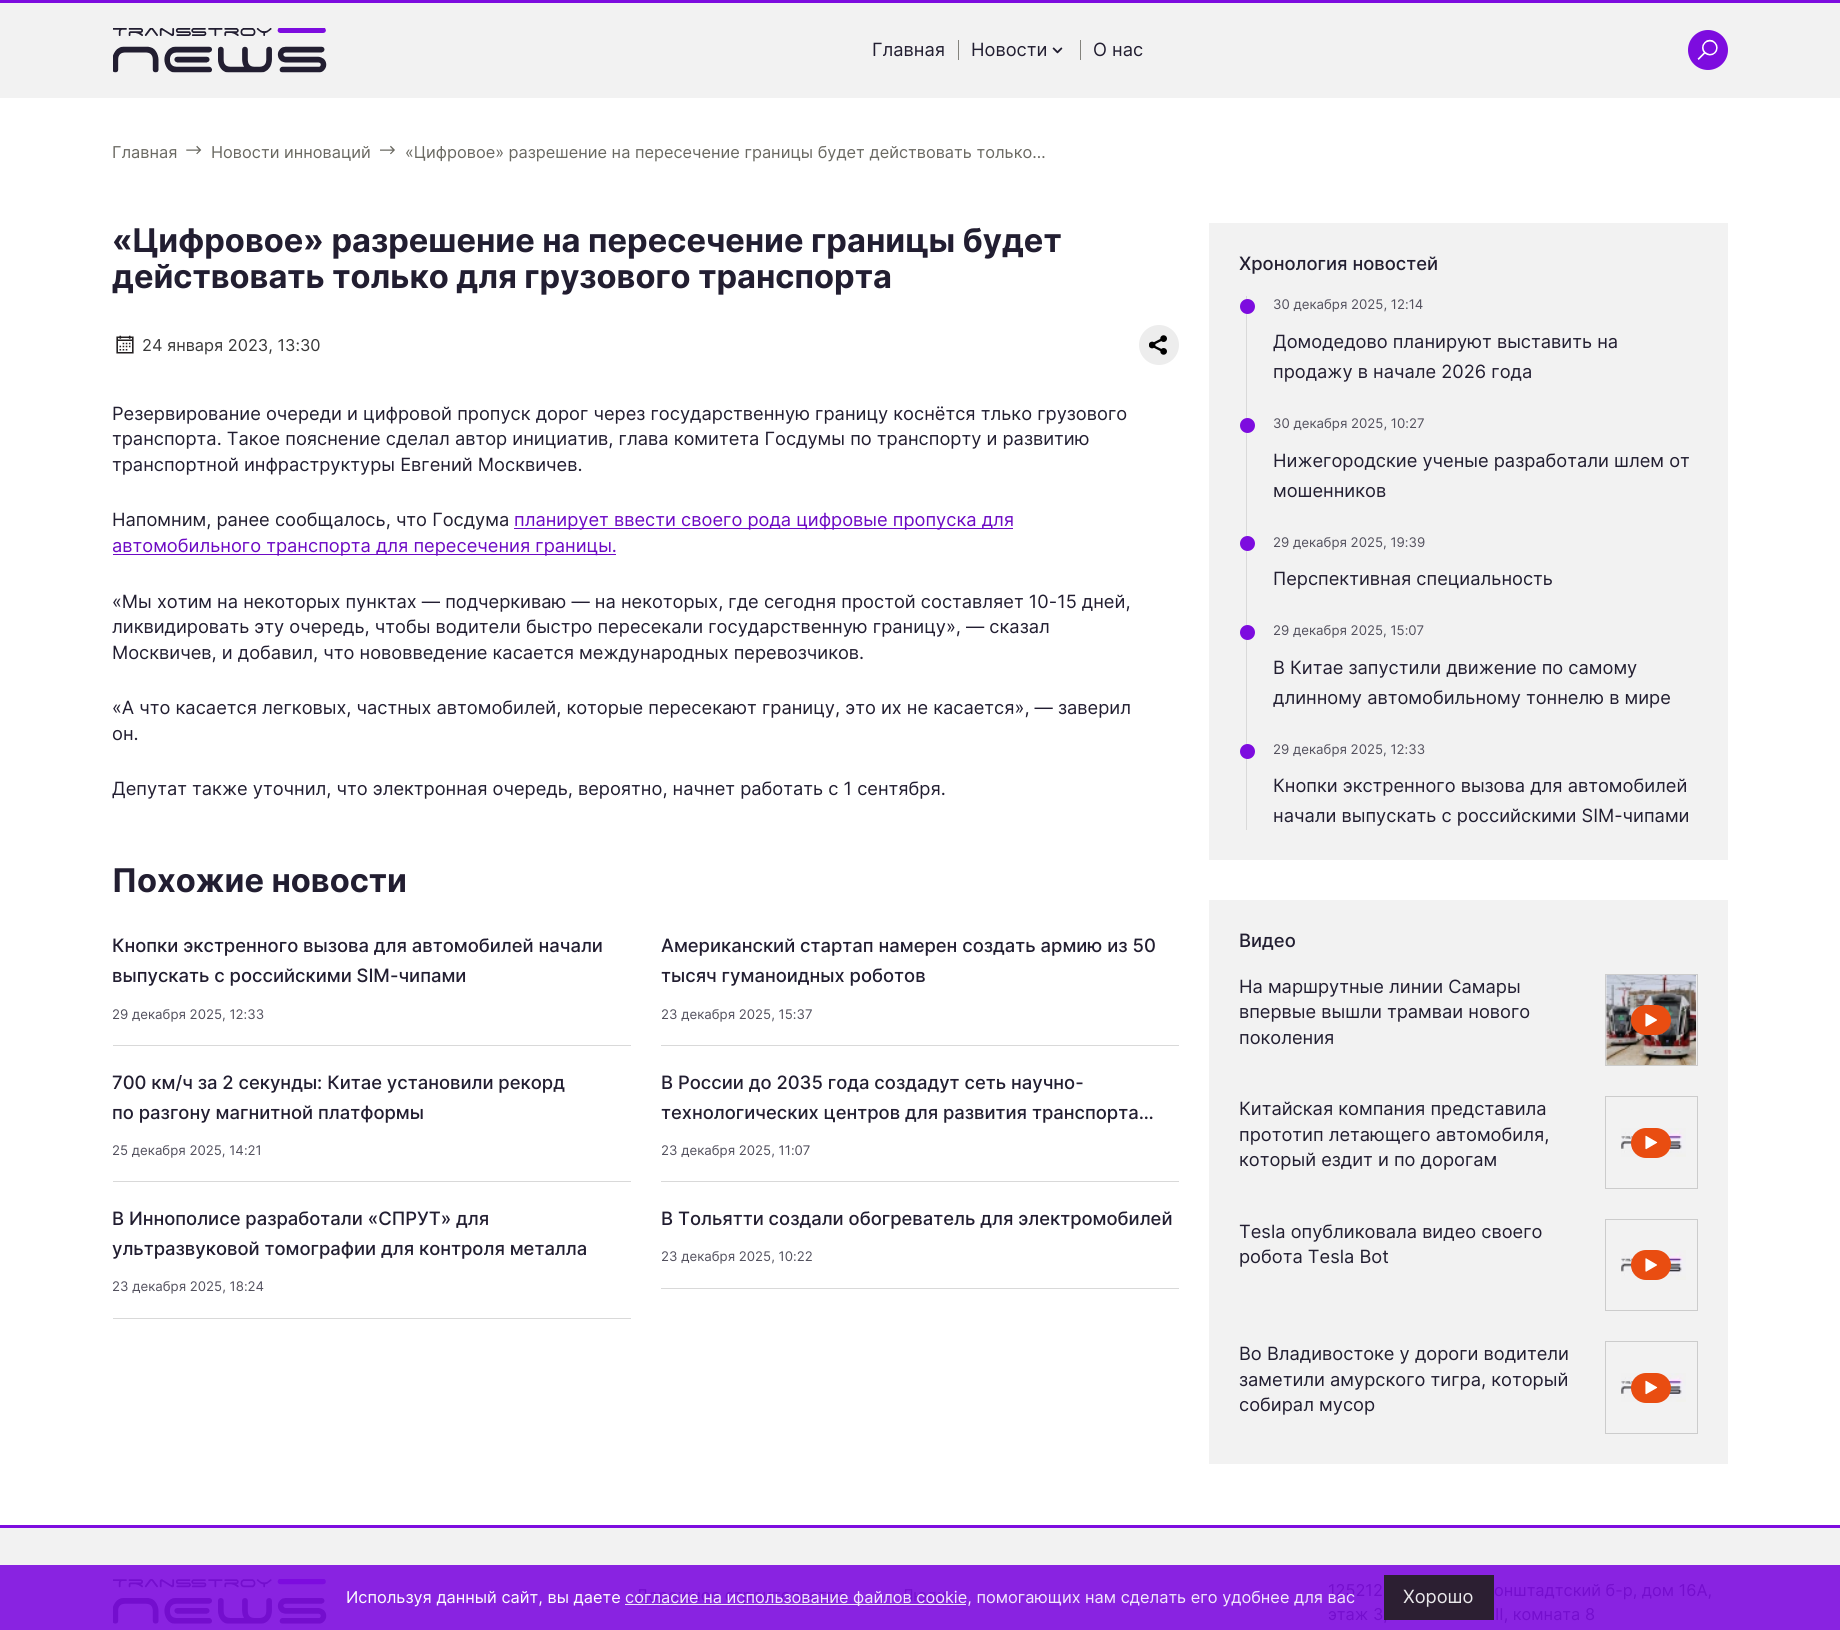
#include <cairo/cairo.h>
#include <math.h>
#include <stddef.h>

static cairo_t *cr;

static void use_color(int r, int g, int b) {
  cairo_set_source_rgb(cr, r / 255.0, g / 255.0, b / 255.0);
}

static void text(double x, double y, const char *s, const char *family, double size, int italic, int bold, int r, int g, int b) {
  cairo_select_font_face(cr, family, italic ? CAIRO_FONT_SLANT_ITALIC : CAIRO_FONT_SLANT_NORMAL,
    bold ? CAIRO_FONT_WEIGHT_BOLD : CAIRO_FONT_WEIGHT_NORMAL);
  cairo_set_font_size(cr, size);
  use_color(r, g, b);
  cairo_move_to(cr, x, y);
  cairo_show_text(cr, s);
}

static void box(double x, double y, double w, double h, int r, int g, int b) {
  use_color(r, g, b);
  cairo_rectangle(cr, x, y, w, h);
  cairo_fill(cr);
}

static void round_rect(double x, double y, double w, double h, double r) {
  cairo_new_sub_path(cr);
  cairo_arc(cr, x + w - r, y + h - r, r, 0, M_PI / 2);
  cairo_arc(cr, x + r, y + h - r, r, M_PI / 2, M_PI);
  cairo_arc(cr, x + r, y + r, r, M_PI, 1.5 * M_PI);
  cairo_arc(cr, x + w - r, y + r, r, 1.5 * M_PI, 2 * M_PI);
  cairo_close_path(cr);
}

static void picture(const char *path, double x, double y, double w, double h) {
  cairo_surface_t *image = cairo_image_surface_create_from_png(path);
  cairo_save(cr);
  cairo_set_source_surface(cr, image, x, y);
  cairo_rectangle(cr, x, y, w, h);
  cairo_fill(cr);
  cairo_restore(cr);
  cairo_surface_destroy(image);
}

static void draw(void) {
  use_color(255, 255, 255);
  cairo_paint(cr);
  box(0, 3, 1840, 95, 242, 242, 242);
  box(0, 0, 1840, 3, 125, 12, 223);
  picture("img_01.png", 113, 28, 214, 45);
  box(958, 40, 1, 20, 132, 131, 125);
  picture("img_02.png", 1052, 47, 11, 7);
  box(1080, 40, 1, 20, 132, 131, 125);
  use_color(125, 12, 223);
  cairo_arc(cr, 1708, 50, 20, 0, 2 * M_PI);
  cairo_fill(cr);
  picture("img_03.png", 1697, 39, 21, 21);
  picture("img_04.png", 186, 145, 16, 10);
  picture("img_05.png", 380, 145, 15, 10);
  picture("img_06.png", 116, 335, 18, 19);
  use_color(237, 237, 237);
  cairo_arc(cr, 1159, 345, 20, 0, 2 * M_PI);
  cairo_fill(cr);
  picture("img_07.png", 1149, 335, 18, 20);
  box(514, 528, 499, 1, 109, 10, 196);
  box(113, 554, 503, 1, 109, 10, 196);
  box(113, 1045, 518, 1, 217, 217, 217);
  box(113, 1181, 518, 1, 217, 217, 217);
  box(113, 1318, 518, 1, 217, 217, 217);
  box(661, 1045, 518, 1, 217, 217, 217);
  box(661, 1181, 518, 1, 217, 217, 217);
  box(661, 1288, 518, 1, 217, 217, 217);
  box(1209, 223, 519, 637, 242, 242, 242);
  box(1246, 296, 1, 534, 217, 217, 217);
  use_color(125, 12, 223);
  cairo_arc(cr, 1247.5, 306.5, 7.5, 0, 2 * M_PI);
  cairo_fill(cr);
  cairo_arc(cr, 1247.5, 425.5, 7.5, 0, 2 * M_PI);
  cairo_fill(cr);
  cairo_arc(cr, 1247.5, 543.5, 7.5, 0, 2 * M_PI);
  cairo_fill(cr);
  cairo_arc(cr, 1247.5, 632.5, 7.5, 0, 2 * M_PI);
  cairo_fill(cr);
  cairo_arc(cr, 1247.5, 751.5, 7.5, 0, 2 * M_PI);
  cairo_fill(cr);
  box(1209, 900, 519, 564, 242, 242, 242);
  cairo_rectangle(cr, 1605.5, 974.5, 92, 91);
  use_color(204, 204, 204);
  cairo_set_line_width(cr, 1);
  cairo_stroke(cr);
  picture("img_08.png", 1606, 975, 91, 90);
  use_color(233, 77, 17);
  round_rect(1631, 1005, 40, 30, 15);
  cairo_fill(cr);
  picture("img_09.png", 1645, 1013, 12, 14);
  cairo_rectangle(cr, 1605.5, 1096.5, 92, 92);
  use_color(204, 204, 204);
  cairo_stroke(cr);
  picture("img_10.png", 1621, 1128, 65, 29);
  use_color(233, 77, 17);
  round_rect(1631, 1128, 40, 30, 15);
  cairo_fill(cr);
  picture("img_11.png", 1645, 1135, 13, 15);
  cairo_rectangle(cr, 1605.5, 1219.5, 92, 91);
  use_color(204, 204, 204);
  cairo_stroke(cr);
  picture("img_12.png", 1621, 1250, 65, 30);
  use_color(233, 77, 17);
  round_rect(1631, 1250, 40, 30, 15);
  cairo_fill(cr);
  picture("img_13.png", 1645, 1258, 12, 14);
  cairo_rectangle(cr, 1605.5, 1341.5, 92, 92);
  use_color(204, 204, 204);
  cairo_stroke(cr);
  picture("img_10.png", 1621, 1373, 65, 29);
  use_color(233, 77, 17);
  round_rect(1631, 1373, 40, 30, 15);
  cairo_fill(cr);
  picture("img_11.png", 1645, 1380, 13, 15);
  box(0, 1528, 1840, 37, 242, 242, 242);
  box(0, 1565, 1840, 65, 137, 35, 225);
  box(0, 1525, 1840, 3, 125, 12, 223);
  picture("img_14.png", 113, 1579, 214, 45);
  text(872, 56, "Главная", "Inter", 18.25, 0, 0, 34, 30, 49);
  text(971, 56, "Новости", "Inter", 18.25, 0, 0, 34, 30, 49);
  text(1093, 56, "О нас", "Inter", 18.25, 0, 0, 34, 30, 49);
  text(112, 158, "Главная", "Inter", 16.35, 0, 0, 106, 105, 98);
  text(211, 158, "Новости инноваций", "Inter", 16.35, 0, 0, 106, 105, 98);
  text(405, 158, "«Цифровое» разрешение на пересечение границы будет действовать только…", "Inter", 16.35, 0, 0, 106, 105, 98);
  text(112, 252, "«Цифровое» разрешение на пересечение границы будет", "Inter", 32.65, 0, 1, 34, 30, 49);
  text(112, 288, "действовать только для грузового транспорта", "Inter", 32.65, 0, 1, 34, 30, 49);
  text(142, 351, "24 января 2023, 13:30", "Inter", 16.35, 0, 0, 56, 56, 56);
  text(112, 420, "Резервирование очереди и цифровой пропуск дорог через государственную границу коснётся тлько грузового", "Inter", 18.25, 0, 0, 34, 30, 49);
  text(112, 445, "транспорта. Такое пояснение сделал автор инициатив, глава комитета Госдумы по транспорту и развитию", "Inter", 18.25, 0, 0, 34, 30, 49);
  text(112, 471, "транспортной инфраструктуры Евгений Москвичев.", "Inter", 18.25, 0, 0, 34, 30, 49);
  text(112, 526, "Напомним, ранее сообщалось, что Госдума", "Inter", 18.25, 0, 0, 34, 30, 49);
  text(514, 526, "планирует ввести своего рода цифровые пропуска для", "Inter", 18.25, 0, 0, 109, 10, 196);
  text(112, 552, "автомобильного транспорта для пересечения границы.", "Inter", 18.25, 0, 0, 109, 10, 196);
  text(112, 608, "«Мы хотим на некоторых пунктах — подчеркиваю — на некоторых, где сегодня простой составляет 10-15 дней,", "Inter", 18.25, 0, 0, 34, 30, 49);
  text(112, 633, "ликвидировать эту очередь, чтобы водители быстро пересекали государственную границу», — сказал", "Inter", 18.25, 0, 0, 34, 30, 49);
  text(112, 659, "Москвичев, и добавил, что нововведение касается международных перевозчиков.", "Inter", 18.25, 0, 0, 34, 30, 49);
  text(112, 714, "«А что касается легковых, частных автомобилей, которые пересекают границу, это их не касается», — заверил", "Inter", 18.25, 0, 0, 34, 30, 49);
  text(112, 740, "он.", "Inter", 18.25, 0, 0, 34, 30, 49);
  text(112, 795, "Депутат также уточнил, что электронная очередь, вероятно, начнет работать с 1 сентября.", "Inter", 18.25, 0, 0, 34, 30, 49);
  text(112, 892, "Похожие новости", "Inter", 32.65, 0, 1, 34, 30, 49);
  text(112, 952, "Кнопки экстренного вызова для автомобилей начали", "Inter Medium", 18.4, 0, 0, 34, 30, 49);
  text(112, 982, "выпускать с российскими SIM-чипами", "Inter Medium", 18.4, 0, 0, 34, 30, 49);
  text(112, 1019, "29 декабря 2025, 12:33", "Inter", 13.25, 0, 0, 82, 80, 93);
  text(112, 1089, "700 км/ч за 2 секунды: Китае установили рекорд", "Inter Medium", 18.4, 0, 0, 34, 30, 49);
  text(112, 1119, "по разгону магнитной платформы", "Inter Medium", 18.4, 0, 0, 34, 30, 49);
  text(112, 1155, "25 декабря 2025, 14:21", "Inter", 13.25, 0, 0, 82, 80, 93);
  text(112, 1225, "В Иннополисе разработали «СПРУТ» для", "Inter Medium", 18.4, 0, 0, 34, 30, 49);
  text(112, 1255, "ультразвуковой томографии для контроля металла", "Inter Medium", 18.4, 0, 0, 34, 30, 49);
  text(112, 1291, "23 декабря 2025, 18:24", "Inter", 13.25, 0, 0, 82, 80, 93);
  text(661, 952, "Американский стартап намерен создать армию из 50", "Inter Medium", 18.4, 0, 0, 34, 30, 49);
  text(661, 982, "тысяч гуманоидных роботов", "Inter Medium", 18.4, 0, 0, 34, 30, 49);
  text(661, 1019, "23 декабря 2025, 15:37", "Inter", 13.25, 0, 0, 82, 80, 93);
  text(661, 1089, "В России до 2035 года создадут сеть научно-", "Inter Medium", 18.4, 0, 0, 34, 30, 49);
  text(661, 1119, "технологических центров для развития транспорта…", "Inter Medium", 18.4, 0, 0, 34, 30, 49);
  text(661, 1155, "23 декабря 2025, 11:07", "Inter", 13.25, 0, 0, 82, 80, 93);
  text(661, 1225, "В Тольятти создали обогреватель для электромобилей", "Inter Medium", 18.4, 0, 0, 34, 30, 49);
  text(661, 1261, "23 декабря 2025, 10:22", "Inter", 13.25, 0, 0, 82, 80, 93);
  text(1239, 270, "Хронология новостей", "Inter Medium", 18.4, 0, 0, 34, 30, 49);
  text(1273, 309, "30 декабря 2025, 12:14", "Inter", 13.25, 0, 0, 82, 80, 93);
  text(1273, 348, "Домодедово планируют выставить на", "Inter", 18.25, 0, 0, 34, 30, 49);
  text(1273, 378, "продажу в начале 2026 года", "Inter", 18.25, 0, 0, 34, 30, 49);
  text(1273, 428, "30 декабря 2025, 10:27", "Inter", 13.25, 0, 0, 82, 80, 93);
  text(1273, 467, "Нижегородские ученые разработали шлем от", "Inter", 18.25, 0, 0, 34, 30, 49);
  text(1273, 497, "мошенников", "Inter", 18.25, 0, 0, 34, 30, 49);
  text(1273, 547, "29 декабря 2025, 19:39", "Inter", 13.25, 0, 0, 82, 80, 93);
  text(1273, 585, "Перспективная специальность", "Inter", 18.25, 0, 0, 34, 30, 49);
  text(1273, 635, "29 декабря 2025, 15:07", "Inter", 13.25, 0, 0, 82, 80, 93);
  text(1273, 674, "В Китае запустили движение по самому", "Inter", 18.25, 0, 0, 34, 30, 49);
  text(1273, 704, "длинному автомобильному тоннелю в мире", "Inter", 18.25, 0, 0, 34, 30, 49);
  text(1273, 754, "29 декабря 2025, 12:33", "Inter", 13.25, 0, 0, 82, 80, 93);
  text(1273, 792, "Кнопки экстренного вызова для автомобилей", "Inter", 18.25, 0, 0, 34, 30, 49);
  text(1273, 822, "начали выпускать с российскими SIM-чипами", "Inter", 18.25, 0, 0, 34, 30, 49);
  text(1239, 947, "Видео", "Inter Medium", 18.4, 0, 0, 34, 30, 49);
  text(1239, 993, "На маршрутные линии Самары", "Inter", 18.25, 0, 0, 34, 30, 49);
  text(1239, 1018, "впервые вышли трамваи нового", "Inter", 18.25, 0, 0, 34, 30, 49);
  text(1239, 1044, "поколения", "Inter", 18.25, 0, 0, 34, 30, 49);
  text(1239, 1115, "Китайская компания представила", "Inter", 18.25, 0, 0, 34, 30, 49);
  text(1239, 1141, "прототип летающего автомобиля,", "Inter", 18.25, 0, 0, 34, 30, 49);
  text(1239, 1166, "который ездит и по дорогам", "Inter", 18.25, 0, 0, 34, 30, 49);
  text(1239, 1238, "Tesla опубликовала видео своего", "Inter", 18.25, 0, 0, 34, 30, 49);
  text(1239, 1263, "робота Tesla Bot", "Inter", 18.25, 0, 0, 34, 30, 49);
  text(1239, 1360, "Во Владивостоке у дороги водители", "Inter", 18.25, 0, 0, 34, 30, 49);
  text(1239, 1386, "заметили амурского тигра, который", "Inter", 18.25, 0, 0, 34, 30, 49);
  text(1239, 1411, "собирал мусор", "Inter", 18.25, 0, 0, 34, 30, 49);
  text(636, 1601, "Дорожное строительство", "Inter", 16.35, 0, 0, 116, 14, 206);
  text(902, 1601, "Люди", "Inter", 16.35, 0, 0, 116, 14, 206);
  text(1328, 1596, "125212", "Inter", 16.35, 0, 0, 116, 14, 206);
  text(1494, 1596, "онштадтский б-р, дом 16А,", "Inter", 16.35, 0, 0, 116, 14, 206);
  text(1328, 1620, "этаж 3,", "Inter", 16.35, 0, 0, 116, 14, 206);
  text(1495, 1620, "II, комната 8", "Inter", 16.35, 0, 0, 116, 14, 206);
  text(346, 1603, "Используя данный сайт, вы даете", "Inter", 16.35, 0, 0, 254, 254, 254);
  cairo_set_source_rgba(cr, 1, 1, 1, 0.9);
  cairo_rectangle(cr, 625, 1604, 341, 1);
  cairo_fill(cr);
  text(625, 1603, "согласие на использование файлов cookie, помогающих нам сделать его удобнее для вас", "Inter", 16.35, 0, 0, 243, 233, 252);
  cairo_set_source_rgba(cr, 0.137, 0.122, 0.125, 0.9);
  cairo_rectangle(cr, 1384, 1575, 110, 45);
  cairo_fill(cr);
  text(1403, 1603, "Хорошо", "Inter", 18.25, 0, 0, 234, 233, 235);
}

int main(void) {
  cairo_surface_t *surface = cairo_image_surface_create(CAIRO_FORMAT_RGB24, 1840, 1630);
  cr = cairo_create(surface);
  cairo_font_options_t *options = cairo_font_options_create();
  cairo_font_options_set_hint_metrics(options, CAIRO_HINT_METRICS_OFF);
  cairo_font_options_set_hint_style(options, CAIRO_HINT_STYLE_NONE);
  cairo_set_font_options(cr, options);
  cairo_set_miter_limit(cr, 4);
  draw();
  cairo_surface_write_to_png(surface, "out.png");
  cairo_font_options_destroy(options);
  cairo_destroy(cr);
  cairo_surface_destroy(surface);
  return 0;
}
